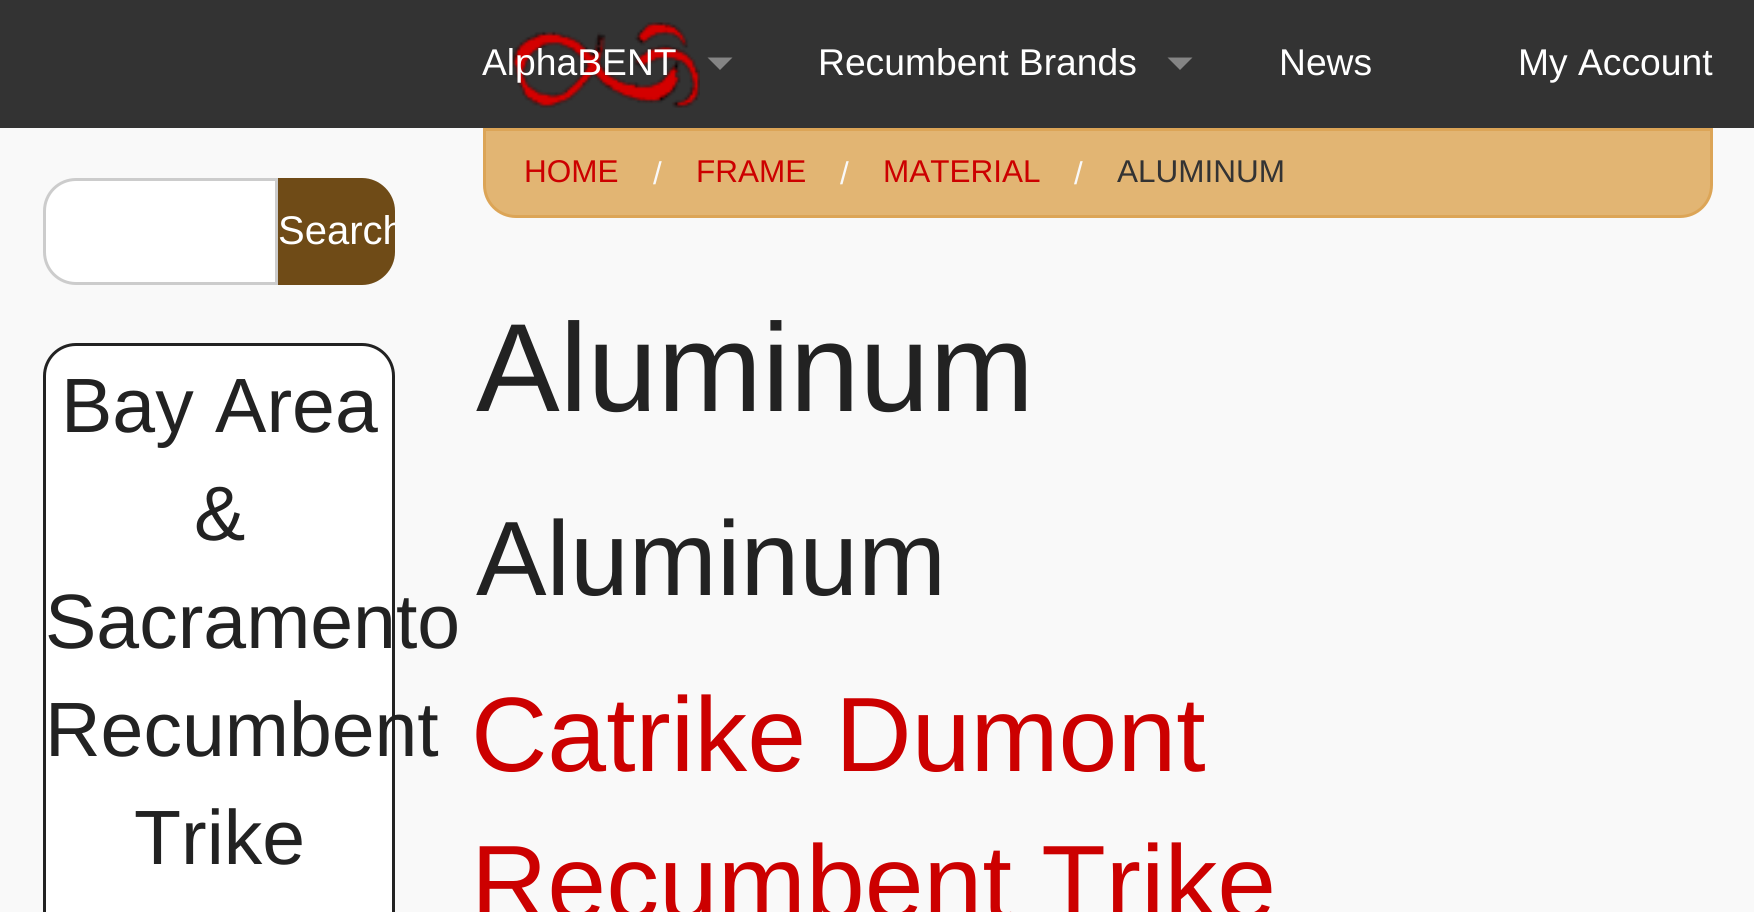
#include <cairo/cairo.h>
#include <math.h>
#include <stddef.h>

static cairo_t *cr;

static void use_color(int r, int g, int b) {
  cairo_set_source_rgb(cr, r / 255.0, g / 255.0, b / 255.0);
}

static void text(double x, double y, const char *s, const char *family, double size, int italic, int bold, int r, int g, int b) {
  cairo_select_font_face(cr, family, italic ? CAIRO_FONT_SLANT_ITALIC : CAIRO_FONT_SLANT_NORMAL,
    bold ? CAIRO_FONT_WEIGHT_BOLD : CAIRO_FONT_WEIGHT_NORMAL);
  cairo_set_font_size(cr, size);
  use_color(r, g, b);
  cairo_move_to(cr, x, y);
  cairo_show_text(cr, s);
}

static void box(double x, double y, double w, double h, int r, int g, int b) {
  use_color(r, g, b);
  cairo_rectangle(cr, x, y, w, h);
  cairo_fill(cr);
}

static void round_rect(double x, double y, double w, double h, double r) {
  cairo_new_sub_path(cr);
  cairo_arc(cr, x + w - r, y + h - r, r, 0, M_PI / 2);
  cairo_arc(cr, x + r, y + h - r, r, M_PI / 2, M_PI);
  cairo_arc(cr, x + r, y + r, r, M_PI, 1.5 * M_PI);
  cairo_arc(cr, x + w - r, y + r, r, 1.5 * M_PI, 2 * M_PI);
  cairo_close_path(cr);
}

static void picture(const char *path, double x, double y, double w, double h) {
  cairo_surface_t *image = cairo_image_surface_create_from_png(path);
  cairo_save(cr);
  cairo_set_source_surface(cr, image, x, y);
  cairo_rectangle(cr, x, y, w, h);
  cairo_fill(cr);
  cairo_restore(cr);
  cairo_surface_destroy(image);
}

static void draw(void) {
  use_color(249, 249, 249);
  cairo_paint(cr);
  box(0, 0, 1754, 128, 51, 51, 51);
  picture("img_01.png", 512, 22, 188, 86);
  use_color(133, 133, 133);
  cairo_new_path(cr);
  cairo_move_to(cr, 707.5, 57.5);
  cairo_line_to(cr, 732.5, 57.5);
  cairo_line_to(cr, 720, 70);
  cairo_close_path(cr);
  cairo_fill(cr);
  cairo_new_path(cr);
  cairo_move_to(cr, 1167.5, 57.5);
  cairo_line_to(cr, 1192.5, 57.5);
  cairo_line_to(cr, 1180, 70);
  cairo_close_path(cr);
  cairo_fill(cr);
  use_color(255, 255, 255);
  cairo_new_path(cr);
  cairo_move_to(cr, 76, 179.5);
  cairo_line_to(cr, 276.5, 179.5);
  cairo_line_to(cr, 276.5, 283.5);
  cairo_line_to(cr, 76, 283.5);
  cairo_curve_to(cr, 58.5, 283.5, 44.5, 269.5, 44.5, 252);
  cairo_line_to(cr, 44.5, 211);
  cairo_curve_to(cr, 44.5, 193.5, 58.5, 179.5, 76, 179.5);
  cairo_close_path(cr);
  cairo_fill_preserve(cr);
  use_color(204, 204, 204);
  cairo_set_line_width(cr, 3);
  cairo_stroke(cr);
  use_color(111, 75, 23);
  cairo_new_path(cr);
  cairo_move_to(cr, 278, 178);
  cairo_line_to(cr, 362, 178);
  cairo_curve_to(cr, 380, 178, 395, 193, 395, 211);
  cairo_line_to(cr, 395, 252);
  cairo_curve_to(cr, 395, 270, 380, 285, 362, 285);
  cairo_line_to(cr, 278, 285);
  cairo_close_path(cr);
  cairo_fill(cr);
  use_color(255, 255, 255);
  round_rect(44.5, 344.5, 349, 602, 31.5);
  cairo_fill_preserve(cr);
  use_color(34, 34, 34);
  cairo_stroke(cr);
  use_color(226, 181, 115);
  cairo_new_path(cr);
  cairo_move_to(cr, 484.5, 129.5);
  cairo_line_to(cr, 1711.5, 129.5);
  cairo_line_to(cr, 1711.5, 185);
  cairo_curve_to(cr, 1711.5, 202.5, 1697.5, 216.5, 1680, 216.5);
  cairo_line_to(cr, 516, 216.5);
  cairo_curve_to(cr, 498.5, 216.5, 484.5, 202.5, 484.5, 185);
  cairo_close_path(cr);
  cairo_fill_preserve(cr);
  use_color(220, 165, 87);
  cairo_stroke(cr);
  text(482, 75, "AlphaBENT", "Liberation Sans", 37.25, 0, 0, 255, 255, 255);
  text(818, 75, "Recumbent Brands", "Liberation Sans", 37.25, 0, 0, 255, 255, 255);
  text(1279, 75, "News", "Liberation Sans", 37.25, 0, 0, 255, 255, 255);
  text(1518, 75, "My Account", "Liberation Sans", 37.25, 0, 0, 255, 255, 255);
  cairo_save(cr);
  cairo_new_path(cr);
  cairo_move_to(cr, 278, 178);
  cairo_line_to(cr, 362, 178);
  cairo_curve_to(cr, 380, 178, 395, 193, 395, 211);
  cairo_line_to(cr, 395, 252);
  cairo_curve_to(cr, 395, 270, 380, 285, 362, 285);
  cairo_line_to(cr, 278, 285);
  cairo_close_path(cr);
  cairo_clip(cr);
  text(278, 244, "Search", "Liberation Sans", 40, 0, 0, 255, 255, 255);
  cairo_restore(cr);
  text(61, 432, "Bay Area", "Liberation Sans", 77, 0, 0, 34, 34, 34);
  text(194, 540, "&", "Liberation Sans", 77, 0, 0, 34, 34, 34);
  text(45, 648, "Sacramento", "Liberation Sans", 77, 0, 0, 34, 34, 34);
  text(45, 756, "Recumbent", "Liberation Sans", 77, 0, 0, 34, 34, 34);
  text(134, 864, "Trike", "Liberation Sans", 77, 0, 0, 34, 34, 34);
  text(524, 182, "HOME", "Liberation Sans", 31.5, 0, 0, 204, 0, 0);
  text(653, 184, "/", "Liberation Sans", 31.5, 0, 0, 249, 249, 249);
  text(696, 182, "FRAME", "Liberation Sans", 31.5, 0, 0, 204, 0, 0);
  text(840, 184, "/", "Liberation Sans", 31.5, 0, 0, 249, 249, 249);
  text(883, 182, "MATERIAL", "Liberation Sans", 31.5, 0, 0, 204, 0, 0);
  text(1074, 184, "/", "Liberation Sans", 31.5, 0, 0, 249, 249, 249);
  text(1117, 182, "ALUMINUM", "Liberation Sans", 31.5, 0, 0, 51, 51, 51);
  text(476, 411, "Aluminum", "Liberation Sans", 125.5, 0, 0, 34, 34, 34);
  text(476, 595, "Aluminum", "Liberation Sans", 105.75, 0, 0, 34, 34, 34);
  text(471, 771, "Catrike Dumont", "Liberation Sans", 105.75, 0, 0, 204, 0, 0);
  text(471, 919, "Recumbent Trike", "Liberation Sans", 105.75, 0, 0, 204, 0, 0);
}

int main(void) {
  cairo_surface_t *surface = cairo_image_surface_create(CAIRO_FORMAT_RGB24, 1754, 912);
  cr = cairo_create(surface);
  cairo_font_options_t *options = cairo_font_options_create();
  cairo_font_options_set_hint_metrics(options, CAIRO_HINT_METRICS_OFF);
  cairo_font_options_set_hint_style(options, CAIRO_HINT_STYLE_NONE);
  cairo_set_font_options(cr, options);
  cairo_set_miter_limit(cr, 4);
  draw();
  cairo_surface_write_to_png(surface, "out.png");
  cairo_font_options_destroy(options);
  cairo_destroy(cr);
  cairo_surface_destroy(surface);
  return 0;
}
